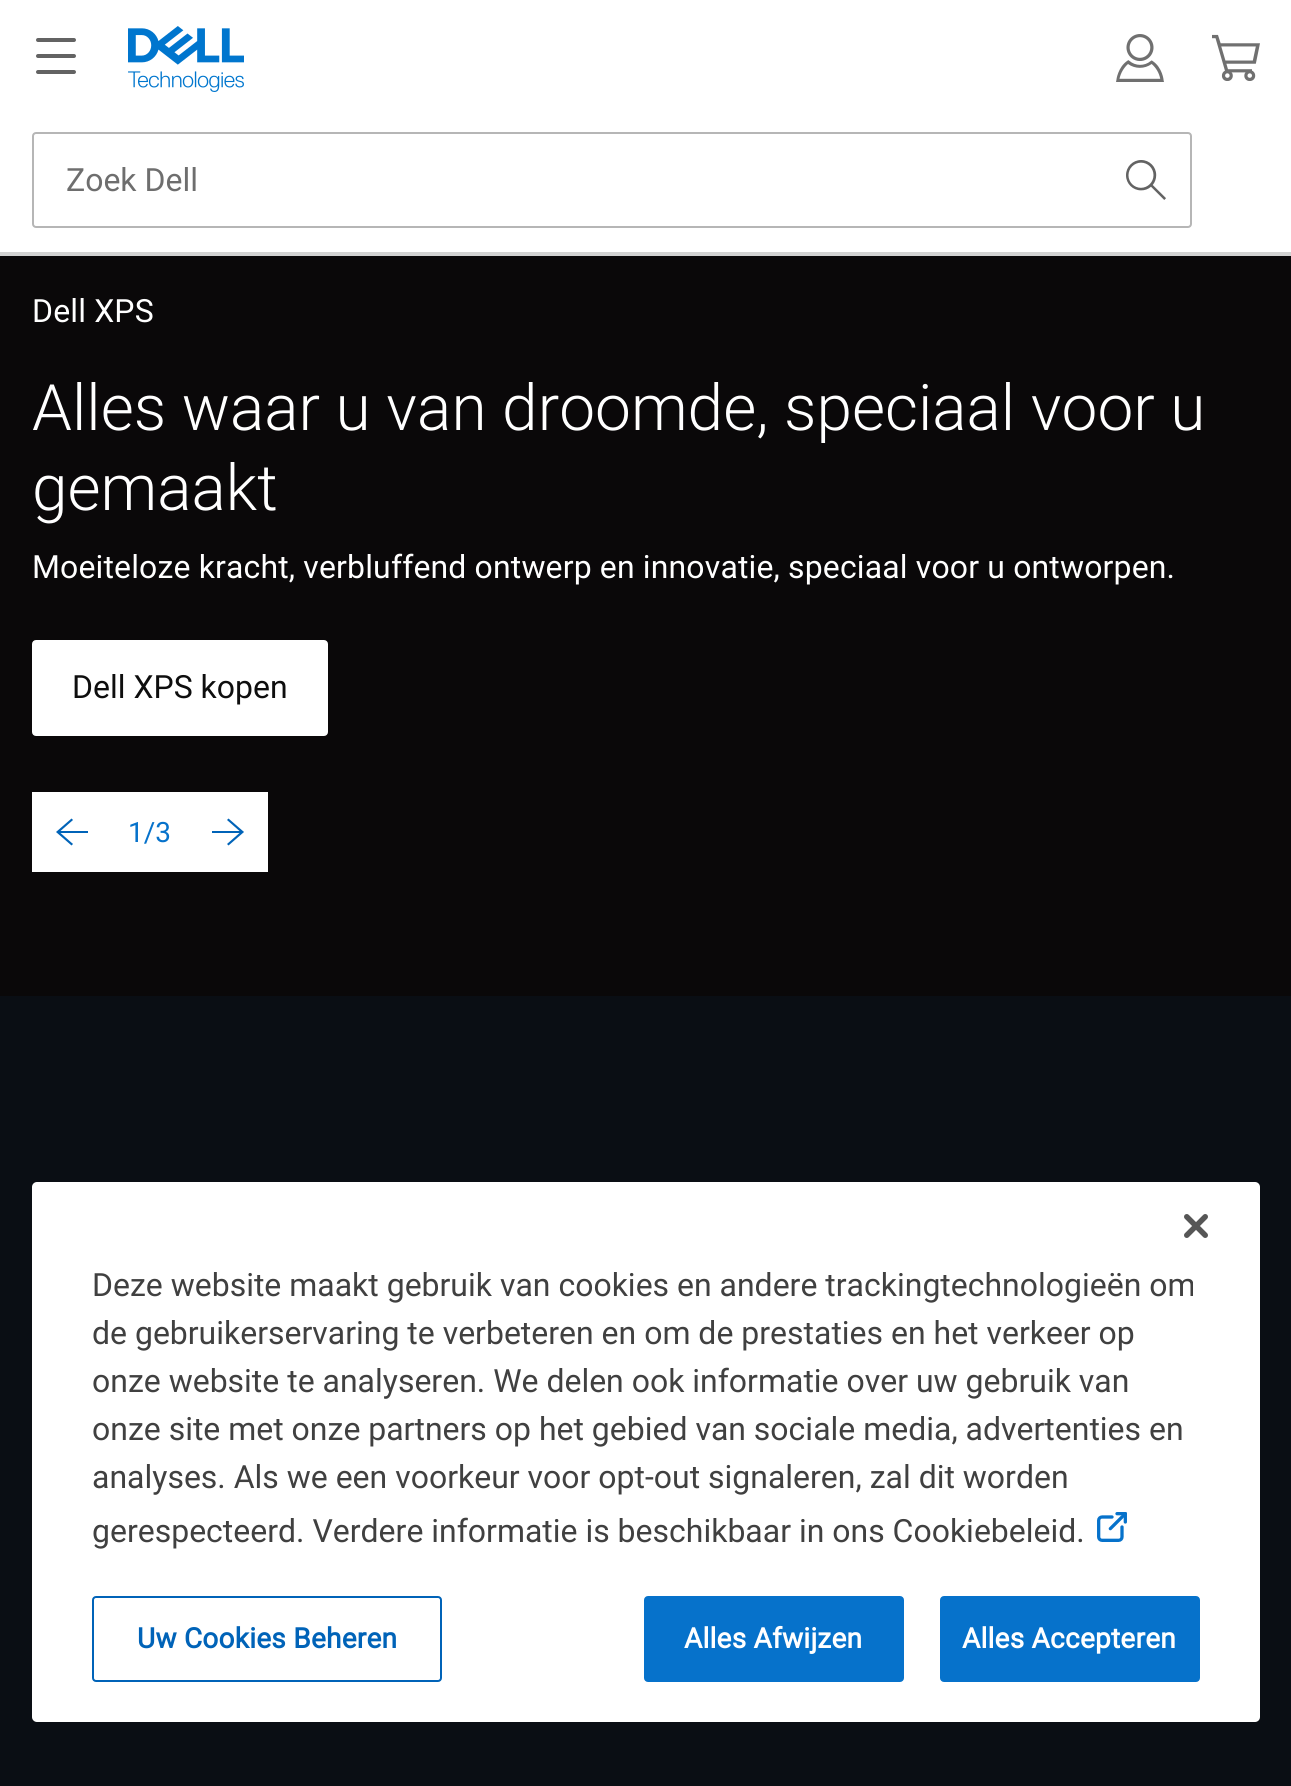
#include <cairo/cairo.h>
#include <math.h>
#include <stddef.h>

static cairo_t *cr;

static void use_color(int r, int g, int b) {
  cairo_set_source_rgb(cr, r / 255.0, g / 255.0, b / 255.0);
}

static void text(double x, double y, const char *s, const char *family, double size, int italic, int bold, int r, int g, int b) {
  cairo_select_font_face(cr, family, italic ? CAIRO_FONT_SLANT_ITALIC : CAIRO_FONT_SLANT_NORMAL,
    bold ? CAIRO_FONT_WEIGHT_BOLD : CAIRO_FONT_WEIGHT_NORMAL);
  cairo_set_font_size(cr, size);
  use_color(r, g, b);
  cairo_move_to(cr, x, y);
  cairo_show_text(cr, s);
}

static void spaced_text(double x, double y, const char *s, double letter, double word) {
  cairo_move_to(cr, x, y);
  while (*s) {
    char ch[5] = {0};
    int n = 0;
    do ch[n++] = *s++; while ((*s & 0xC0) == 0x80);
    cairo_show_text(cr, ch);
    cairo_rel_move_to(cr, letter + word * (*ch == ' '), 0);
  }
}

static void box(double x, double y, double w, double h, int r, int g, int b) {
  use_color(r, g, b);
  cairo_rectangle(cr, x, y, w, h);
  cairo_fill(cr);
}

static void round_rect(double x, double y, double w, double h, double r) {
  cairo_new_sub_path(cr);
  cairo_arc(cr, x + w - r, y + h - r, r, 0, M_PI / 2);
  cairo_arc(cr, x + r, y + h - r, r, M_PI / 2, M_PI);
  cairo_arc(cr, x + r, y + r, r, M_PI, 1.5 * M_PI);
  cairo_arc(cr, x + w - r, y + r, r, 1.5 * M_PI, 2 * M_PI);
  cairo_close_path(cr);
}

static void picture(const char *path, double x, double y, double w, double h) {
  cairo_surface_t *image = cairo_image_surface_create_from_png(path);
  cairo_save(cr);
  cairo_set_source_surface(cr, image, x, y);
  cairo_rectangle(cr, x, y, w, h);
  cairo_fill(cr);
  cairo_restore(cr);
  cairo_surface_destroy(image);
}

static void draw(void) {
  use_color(10, 14, 20);
  cairo_paint(cr);
  box(0, 0, 1291, 252, 255, 255, 255);
  box(0, 252, 1291, 4, 210, 210, 210);
  picture("img_01.png", 1116, 34, 48, 48);
  picture("img_02.png", 1212, 34, 48, 47);
  use_color(99, 99, 99);
  round_rect(36, 38, 40, 4, 2);
  cairo_fill(cr);
  round_rect(36, 54, 40, 4, 2);
  cairo_fill(cr);
  round_rect(36, 70, 40, 4, 2);
  cairo_fill(cr);
  picture("img_03.png", 128, 26, 116, 66);
  round_rect(33, 133, 1158, 94, 3);
  use_color(182, 182, 182);
  cairo_stroke(cr);
  picture("img_04.png", 1126, 160, 40, 40);
  box(0, 256, 1291, 740, 10, 8, 9);
  use_color(255, 255, 255);
  round_rect(33, 641, 294, 94, 3);
  cairo_fill_preserve(cr);
  cairo_stroke(cr);
  box(32, 792, 236, 80, 255, 255, 255);
  use_color(0, 99, 184);
  cairo_new_path(cr);
  cairo_move_to(cr, 88, 831);
  cairo_line_to(cr, 60.5, 831);
  cairo_line_to(cr, 73, 820);
  cairo_line_to(cr, 71.5, 818.5);
  cairo_line_to(cr, 56, 832);
  cairo_line_to(cr, 71.5, 845.5);
  cairo_line_to(cr, 73, 844);
  cairo_line_to(cr, 60.5, 833);
  cairo_line_to(cr, 88, 833);
  cairo_close_path(cr);
  cairo_fill(cr);
  cairo_new_path(cr);
  cairo_move_to(cr, 228.5, 818.5);
  cairo_line_to(cr, 227, 820);
  cairo_line_to(cr, 239.5, 831);
  cairo_line_to(cr, 212, 831);
  cairo_line_to(cr, 212, 833);
  cairo_line_to(cr, 239.5, 833);
  cairo_line_to(cr, 227, 844);
  cairo_line_to(cr, 228.5, 845.5);
  cairo_line_to(cr, 244, 832);
  cairo_close_path(cr);
  cairo_fill(cr);
  use_color(255, 255, 255);
  round_rect(32, 1182, 1228, 540, 5);
  cairo_fill(cr);
  picture("img_05.png", 1184, 1214, 24, 24);
  picture("img_06.png", 1097, 1512, 30, 30);
  round_rect(93, 1597, 348, 84, 3);
  use_color(0, 99, 184);
  cairo_stroke(cr);
  use_color(6, 114, 203);
  round_rect(645, 1597, 258, 84, 3);
  cairo_fill_preserve(cr);
  cairo_stroke(cr);
  round_rect(941, 1597, 258, 84, 3);
  cairo_fill_preserve(cr);
  cairo_stroke(cr);
  text(66, 191, "Zoek Dell", "Roboto", 32, 0, 0, 110, 110, 110);
  use_color(255, 255, 255);
  spaced_text(32, 322, "Dell XPS", 0.15, 0);
  text(32, 430, "Alles waar u van droomde, speciaal voor u", "Roboto Light", 64, 0, 0, 255, 255, 255);
  text(32, 510, "gemaakt", "Roboto Light", 64, 0, 0, 255, 255, 255);
  cairo_select_font_face(cr, "Roboto", CAIRO_FONT_SLANT_NORMAL, CAIRO_FONT_WEIGHT_NORMAL);
  cairo_set_font_size(cr, 32);
  spaced_text(32, 578, "Moeiteloze kracht, verbluffend ontwerp en innovatie, speciaal voor u ontworpen.", 0.15, 0);
  text(72, 698, "Dell XPS kopen", "Roboto", 32, 0, 0, 14, 14, 14);
  text(128, 842, "1/3", "Roboto", 28, 0, 0, 6, 114, 203);
  text(92, 1296, "Deze website maakt gebruik van cookies en andere trackingtechnologieën om", "Roboto", 32, 0, 0, 64, 64, 64);
  text(92, 1344, "de gebruikerservaring te verbeteren en om de prestaties en het verkeer op", "Roboto", 32, 0, 0, 64, 64, 64);
  text(92, 1392, "onze website te analyseren. We delen ook informatie over uw gebruik van", "Roboto", 32, 0, 0, 64, 64, 64);
  text(92, 1440, "onze site met onze partners op het gebied van sociale media, advertenties en", "Roboto", 32, 0, 0, 64, 64, 64);
  text(92, 1488, "analyses. Als we een voorkeur voor opt-out signaleren, zal dit worden", "Roboto", 32, 0, 0, 64, 64, 64);
  text(92, 1542, "gerespecteerd. Verdere informatie is beschikbaar in ons Cookiebeleid.", "Roboto", 32, 0, 0, 64, 64, 64);
  cairo_select_font_face(cr, "Roboto", CAIRO_FONT_SLANT_NORMAL, CAIRO_FONT_WEIGHT_BOLD);
  cairo_set_font_size(cr, 28);
  use_color(0, 99, 184);
  spaced_text(137, 1648, "Uw Cookies Beheren", 0.25, 0);
  use_color(255, 255, 255);
  spaced_text(684, 1648, "Alles Afwijzen", 0.25, 0);
  spaced_text(962, 1648, "Alles Accepteren", 0.25, 0);
}

int main(void) {
  cairo_surface_t *surface = cairo_image_surface_create(CAIRO_FORMAT_RGB24, 1291, 1786);
  cr = cairo_create(surface);
  cairo_font_options_t *options = cairo_font_options_create();
  cairo_font_options_set_hint_metrics(options, CAIRO_HINT_METRICS_OFF);
  cairo_font_options_set_hint_style(options, CAIRO_HINT_STYLE_NONE);
  cairo_set_font_options(cr, options);
  cairo_set_miter_limit(cr, 4);
  draw();
  cairo_surface_write_to_png(surface, "out.png");
  cairo_font_options_destroy(options);
  cairo_destroy(cr);
  cairo_surface_destroy(surface);
  return 0;
}
